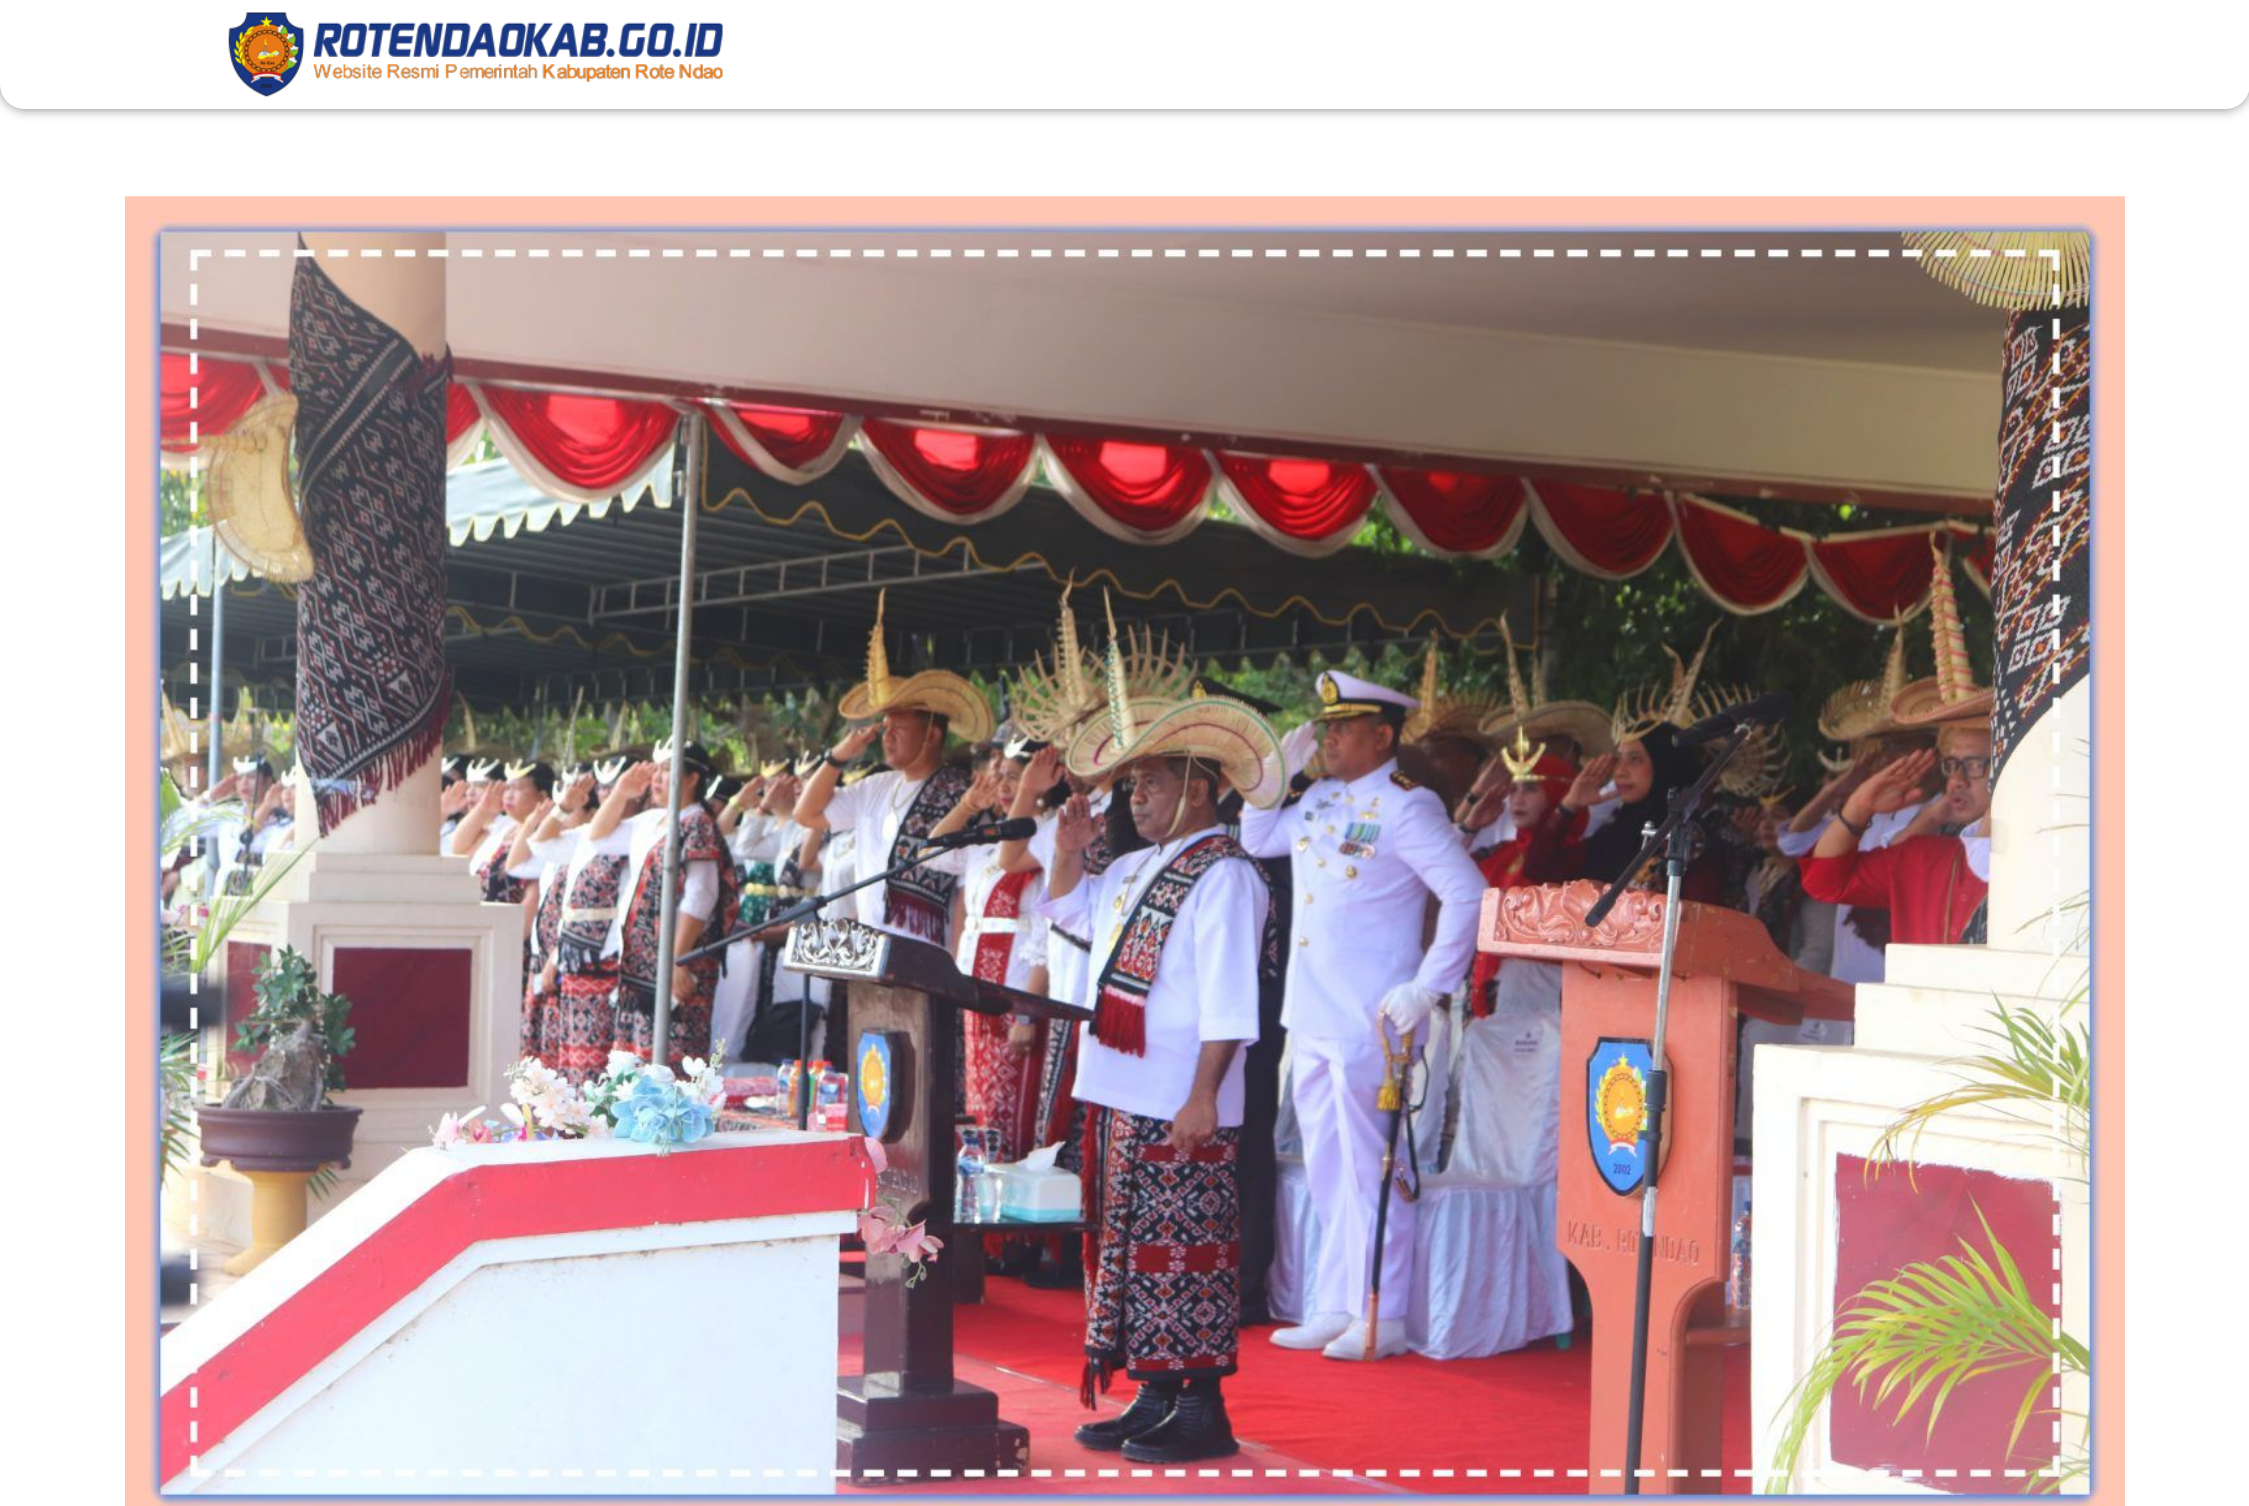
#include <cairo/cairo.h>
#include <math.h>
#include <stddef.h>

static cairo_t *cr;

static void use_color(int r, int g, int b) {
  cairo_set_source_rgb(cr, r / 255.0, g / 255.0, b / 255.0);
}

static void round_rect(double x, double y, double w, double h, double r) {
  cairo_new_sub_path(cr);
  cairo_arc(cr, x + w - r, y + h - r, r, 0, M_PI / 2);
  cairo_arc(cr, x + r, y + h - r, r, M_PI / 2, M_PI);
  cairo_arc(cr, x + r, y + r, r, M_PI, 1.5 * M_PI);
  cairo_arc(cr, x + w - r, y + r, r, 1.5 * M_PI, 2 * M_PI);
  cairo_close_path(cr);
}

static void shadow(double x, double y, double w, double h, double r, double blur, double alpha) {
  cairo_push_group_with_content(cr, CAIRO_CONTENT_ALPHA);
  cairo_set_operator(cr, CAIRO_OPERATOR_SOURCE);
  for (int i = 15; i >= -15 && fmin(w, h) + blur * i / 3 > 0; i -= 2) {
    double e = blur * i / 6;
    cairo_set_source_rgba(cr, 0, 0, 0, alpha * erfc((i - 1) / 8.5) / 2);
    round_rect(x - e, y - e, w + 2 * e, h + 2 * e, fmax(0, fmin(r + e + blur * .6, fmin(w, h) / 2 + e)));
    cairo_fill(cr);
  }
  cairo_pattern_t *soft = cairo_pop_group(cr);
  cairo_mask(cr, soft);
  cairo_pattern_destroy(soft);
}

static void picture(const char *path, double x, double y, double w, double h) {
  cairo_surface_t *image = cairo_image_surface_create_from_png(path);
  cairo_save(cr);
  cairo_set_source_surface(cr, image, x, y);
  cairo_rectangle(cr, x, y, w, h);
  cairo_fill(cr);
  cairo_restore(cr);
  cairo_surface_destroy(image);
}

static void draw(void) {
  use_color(255, 255, 255);
  cairo_paint(cr);
  use_color(0, 0, 0);
  shadow(0, 0, 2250, 109, 25, 6, 0.5);
  use_color(255, 255, 255);
  cairo_new_path(cr);
  cairo_move_to(cr, 0, 0);
  cairo_line_to(cr, 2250, 0);
  cairo_line_to(cr, 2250, 84);
  cairo_curve_to(cr, 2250, 98, 2239, 109, 2225, 109);
  cairo_line_to(cr, 25, 109);
  cairo_curve_to(cr, 11, 109, 0, 98, 0, 84);
  cairo_close_path(cr);
  cairo_fill(cr);
  picture("img_01.png", 228, 12, 495, 85);
  picture("img_02.png", 125, 196, 2000, 1310);
}

int main(void) {
  cairo_surface_t *surface = cairo_image_surface_create(CAIRO_FORMAT_RGB24, 2249, 1506);
  cr = cairo_create(surface);
  cairo_font_options_t *options = cairo_font_options_create();
  cairo_font_options_set_hint_metrics(options, CAIRO_HINT_METRICS_OFF);
  cairo_font_options_set_hint_style(options, CAIRO_HINT_STYLE_NONE);
  cairo_set_font_options(cr, options);
  cairo_set_miter_limit(cr, 4);
  draw();
  cairo_surface_write_to_png(surface, "out.png");
  cairo_font_options_destroy(options);
  cairo_destroy(cr);
  cairo_surface_destroy(surface);
  return 0;
}
